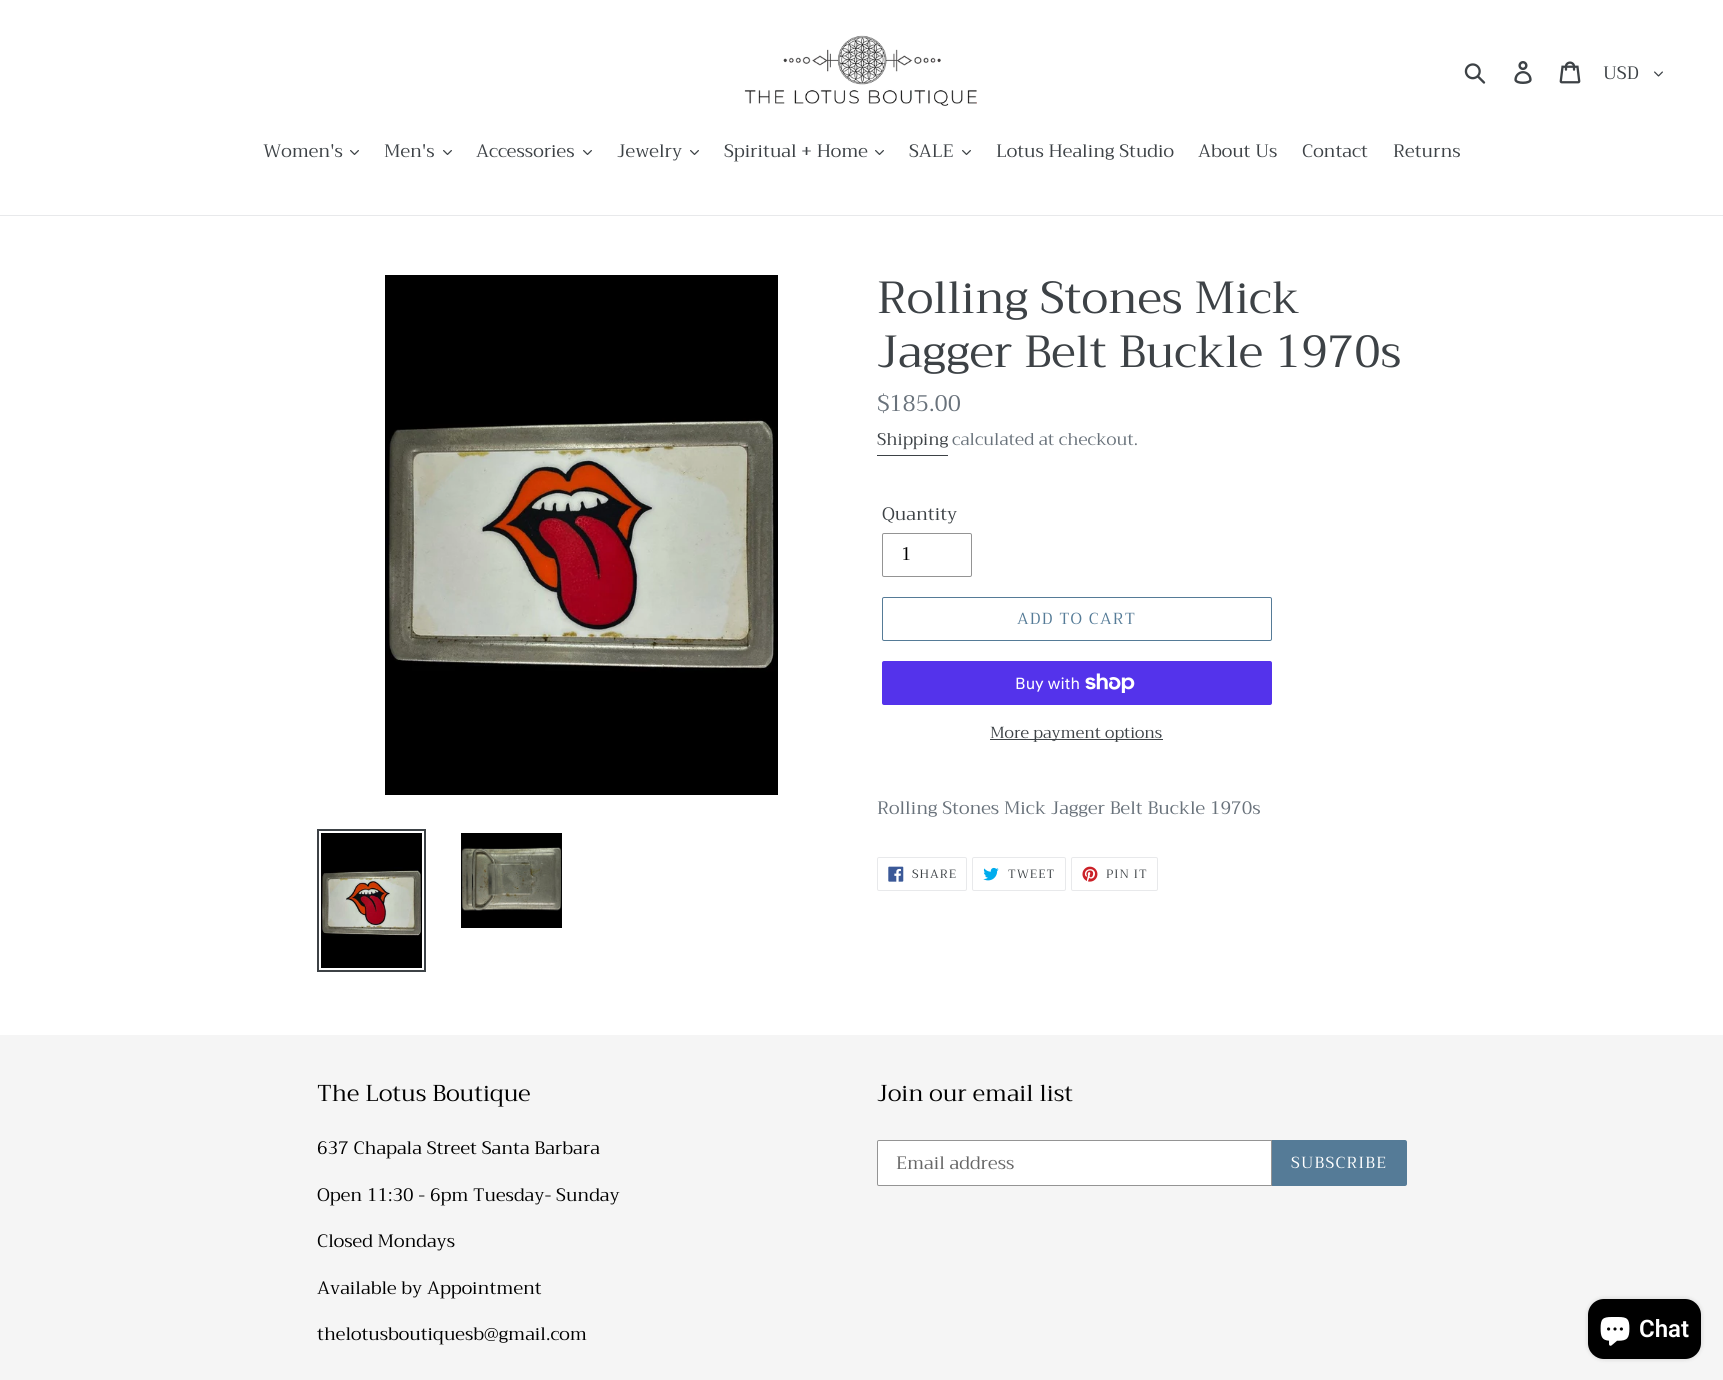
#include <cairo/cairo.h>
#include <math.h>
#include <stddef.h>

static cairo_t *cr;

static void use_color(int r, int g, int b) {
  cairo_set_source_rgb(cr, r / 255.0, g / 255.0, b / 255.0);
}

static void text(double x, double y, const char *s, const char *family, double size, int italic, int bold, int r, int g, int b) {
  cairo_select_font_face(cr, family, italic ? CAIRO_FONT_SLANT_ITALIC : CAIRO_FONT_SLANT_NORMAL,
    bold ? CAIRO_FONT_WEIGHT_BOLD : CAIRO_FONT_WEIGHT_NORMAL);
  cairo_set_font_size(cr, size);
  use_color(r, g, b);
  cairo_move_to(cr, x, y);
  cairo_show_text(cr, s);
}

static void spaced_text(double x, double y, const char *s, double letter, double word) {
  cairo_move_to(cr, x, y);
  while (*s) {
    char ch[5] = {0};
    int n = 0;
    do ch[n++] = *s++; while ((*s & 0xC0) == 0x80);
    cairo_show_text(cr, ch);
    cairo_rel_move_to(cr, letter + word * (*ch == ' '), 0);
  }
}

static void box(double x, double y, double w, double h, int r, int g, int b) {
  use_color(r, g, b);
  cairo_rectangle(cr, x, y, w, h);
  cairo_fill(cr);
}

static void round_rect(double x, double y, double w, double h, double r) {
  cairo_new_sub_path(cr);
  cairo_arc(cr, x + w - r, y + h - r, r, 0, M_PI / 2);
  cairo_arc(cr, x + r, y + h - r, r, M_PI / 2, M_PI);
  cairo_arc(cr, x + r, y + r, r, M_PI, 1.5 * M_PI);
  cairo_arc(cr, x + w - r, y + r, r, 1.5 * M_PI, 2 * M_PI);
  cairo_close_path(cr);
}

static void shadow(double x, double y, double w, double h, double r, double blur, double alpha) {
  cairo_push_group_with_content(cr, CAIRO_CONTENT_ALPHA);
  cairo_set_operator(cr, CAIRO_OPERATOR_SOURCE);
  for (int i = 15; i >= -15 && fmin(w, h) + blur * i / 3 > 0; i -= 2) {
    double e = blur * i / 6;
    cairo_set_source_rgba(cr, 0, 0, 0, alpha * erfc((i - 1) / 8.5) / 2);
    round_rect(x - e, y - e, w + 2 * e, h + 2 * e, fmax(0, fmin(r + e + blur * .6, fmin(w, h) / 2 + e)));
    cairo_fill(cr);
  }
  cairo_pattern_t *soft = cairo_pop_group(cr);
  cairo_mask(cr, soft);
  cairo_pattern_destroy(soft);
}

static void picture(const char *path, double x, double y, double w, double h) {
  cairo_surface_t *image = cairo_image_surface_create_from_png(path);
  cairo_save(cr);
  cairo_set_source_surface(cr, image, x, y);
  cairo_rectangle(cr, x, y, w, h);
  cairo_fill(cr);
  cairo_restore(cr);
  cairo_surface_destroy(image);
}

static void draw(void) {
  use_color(255, 255, 255);
  cairo_paint(cr);
  picture("img_01.png", 744, 35, 233, 71);
  picture("img_02.png", 1464, 63, 22, 21);
  picture("img_03.png", 1514, 61, 18, 23);
  picture("img_04.png", 1559, 61, 22, 23);
  picture("img_05.png", 1654, 71, 9, 6);
  box(0, 215, 1723, 1, 232, 233, 235);
  picture("img_06.png", 350, 150, 9, 5);
  picture("img_06.png", 443, 150, 9, 5);
  picture("img_06.png", 583, 150, 9, 5);
  picture("img_06.png", 690, 150, 9, 5);
  picture("img_06.png", 875, 150, 9, 5);
  picture("img_06.png", 962, 150, 9, 5);
  picture("img_07.png", 385, 275, 393, 520);
  cairo_rectangle(cr, 318, 830, 107, 141);
  use_color(61, 66, 70);
  cairo_stroke(cr);
  picture("img_08.png", 321, 833, 101, 135);
  picture("img_09.png", 461, 833, 101, 95);
  box(877, 455, 71, 1, 61, 66, 70);
  round_rect(882.5, 533.5, 89, 43, 1.5);
  use_color(148, 148, 148);
  cairo_set_line_width(cr, 1);
  cairo_stroke(cr);
  round_rect(882.5, 597.5, 389, 43, 1.5);
  use_color(85, 123, 151);
  cairo_stroke(cr);
  use_color(84, 51, 235);
  round_rect(882, 661, 390, 44, 2);
  cairo_fill(cr);
  picture("img_10.png", 1085, 673, 50, 20);
  box(990, 739, 173, 1, 61, 66, 70);
  round_rect(877.5, 857.5, 89, 33, 1.5);
  use_color(232, 233, 235);
  cairo_stroke(cr);
  picture("img_11.png", 888, 866, 16, 16);
  round_rect(972.5, 857.5, 93, 33, 1.5);
  cairo_stroke(cr);
  picture("img_12.png", 983, 867, 16, 14);
  round_rect(1071.5, 857.5, 86, 33, 1.5);
  cairo_stroke(cr);
  picture("img_13.png", 1082, 866, 16, 16);
  box(0, 1035, 1723, 345, 245, 245, 245);
  use_color(255, 255, 255);
  cairo_new_path(cr);
  cairo_move_to(cr, 879, 1140.5);
  cairo_line_to(cr, 1271.5, 1140.5);
  cairo_line_to(cr, 1271.5, 1185.5);
  cairo_line_to(cr, 879, 1185.5);
  cairo_curve_to(cr, 878, 1185.5, 877.5, 1185, 877.5, 1184);
  cairo_line_to(cr, 877.5, 1142);
  cairo_curve_to(cr, 877.5, 1141, 878, 1140.5, 879, 1140.5);
  cairo_close_path(cr);
  cairo_fill_preserve(cr);
  use_color(148, 148, 148);
  cairo_stroke(cr);
  use_color(85, 123, 151);
  cairo_new_path(cr);
  cairo_move_to(cr, 1272, 1140);
  cairo_line_to(cr, 1405, 1140);
  cairo_curve_to(cr, 1406, 1140, 1407, 1141, 1407, 1142);
  cairo_line_to(cr, 1407, 1184);
  cairo_curve_to(cr, 1407, 1185, 1406, 1186, 1405, 1186);
  cairo_line_to(cr, 1272, 1186);
  cairo_close_path(cr);
  cairo_fill(cr);
  use_color(0, 0, 0);
  shadow(1588, 1299, 113, 60, 16, 2.5, 0.15);
  use_color(0, 0, 0);
  round_rect(1588, 1299, 113, 60, 16);
  cairo_fill(cr);
  picture("img_14.png", 1600, 1317, 30, 29);
  text(1603, 79, "USD", "Trirong", 18, 0, 0, 61, 66, 70);
  text(263, 157, "Women's", "Trirong", 18, 0, 0, 61, 66, 70);
  text(384, 157, "Men's", "Trirong", 18, 0, 0, 61, 66, 70);
  text(476, 157, "Accessories", "Trirong", 18, 0, 0, 61, 66, 70);
  text(617, 157, "Jewelry", "Trirong", 18, 0, 0, 61, 66, 70);
  text(724, 157, "Spiritual + Home", "Trirong", 18, 0, 0, 61, 66, 70);
  text(909, 157, "SALE", "Trirong", 18, 0, 0, 61, 66, 70);
  text(996, 157, "Lotus Healing Studio", "Trirong", 18, 0, 0, 61, 66, 70);
  text(1198, 157, "About Us", "Trirong", 18, 0, 0, 61, 66, 70);
  text(1302, 157, "Contact", "Trirong", 18, 0, 0, 61, 66, 70);
  text(1393, 157, "Returns", "Trirong", 18, 0, 0, 61, 66, 70);
  text(877, 313, "Rolling Stones Mick", "Trirong", 45, 0, 0, 61, 66, 70);
  text(877, 367, "Jagger Belt Buckle 1970s", "Trirong", 45, 0, 0, 61, 66, 70);
  text(877, 411, "$185.00", "Trirong", 22.5, 0, 0, 105, 114, 123);
  text(877, 445, "Shipping", "Trirong", 17, 0, 0, 61, 66, 70);
  text(952, 445, "calculated at checkout.", "Trirong", 17, 0, 0, 105, 114, 123);
  text(882, 520, "Quantity", "Trirong", 18, 0, 0, 61, 66, 70);
  text(901, 560, "1", "Trirong", 18, 0, 0, 0, 0, 0);
  cairo_set_font_size(cr, 16);
  use_color(85, 123, 151);
  spaced_text(1017, 624, "ADD TO CART", 1.25, 0);
  text(1015, 689, "Buy with", "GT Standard", 16, 0, 0, 255, 255, 255);
  text(990, 738, "More payment options", "Trirong", 16, 0, 0, 61, 66, 70);
  text(877, 814, "Rolling Stones Mick Jagger Belt Buckle 1970s", "Trirong", 18, 0, 0, 105, 114, 123);
  cairo_set_font_size(cr, 12);
  use_color(61, 66, 70);
  spaced_text(912, 878, "SHARE", 1, 0);
  spaced_text(1008, 878, "TWEET", 1, 0);
  spaced_text(1106, 878, "PIN IT", 1, 0);
  text(317, 1101, "The Lotus Boutique", "Trirong", 23, 0, 0, 0, 0, 0);
  text(317, 1154, "637 Chapala Street Santa Barbara", "Trirong", 18, 0, 0, 0, 0, 0);
  text(317, 1201, "Open 11:30 - 6pm Tuesday- Sunday", "Trirong", 18, 0, 0, 0, 0, 0);
  text(317, 1247, "Closed Mondays", "Trirong", 18, 0, 0, 0, 0, 0);
  text(317, 1294, "Available by Appointment", "Trirong", 18, 0, 0, 0, 0, 0);
  text(317, 1340, "thelotusboutiquesb@gmail.com", "Trirong", 18, 0, 0, 0, 0, 0);
  text(877, 1101, "Join our email list", "Trirong", 23, 0, 0, 0, 0, 0);
  text(896, 1169, "Email address", "Trirong", 18, 0, 0, 102, 102, 102);
  cairo_set_font_size(cr, 16);
  use_color(255, 255, 255);
  spaced_text(1291, 1168, "SUBSCRIBE", 1.25, 0);
  text(1639, 1337, "Chat", "Roboto SemiBold", 24, 0, 0, 255, 255, 255);
}

int main(void) {
  cairo_surface_t *surface = cairo_image_surface_create(CAIRO_FORMAT_RGB24, 1723, 1380);
  cr = cairo_create(surface);
  cairo_font_options_t *options = cairo_font_options_create();
  cairo_font_options_set_hint_metrics(options, CAIRO_HINT_METRICS_OFF);
  cairo_font_options_set_hint_style(options, CAIRO_HINT_STYLE_NONE);
  cairo_set_font_options(cr, options);
  cairo_set_miter_limit(cr, 4);
  draw();
  cairo_surface_write_to_png(surface, "out.png");
  cairo_font_options_destroy(options);
  cairo_destroy(cr);
  cairo_surface_destroy(surface);
  return 0;
}
